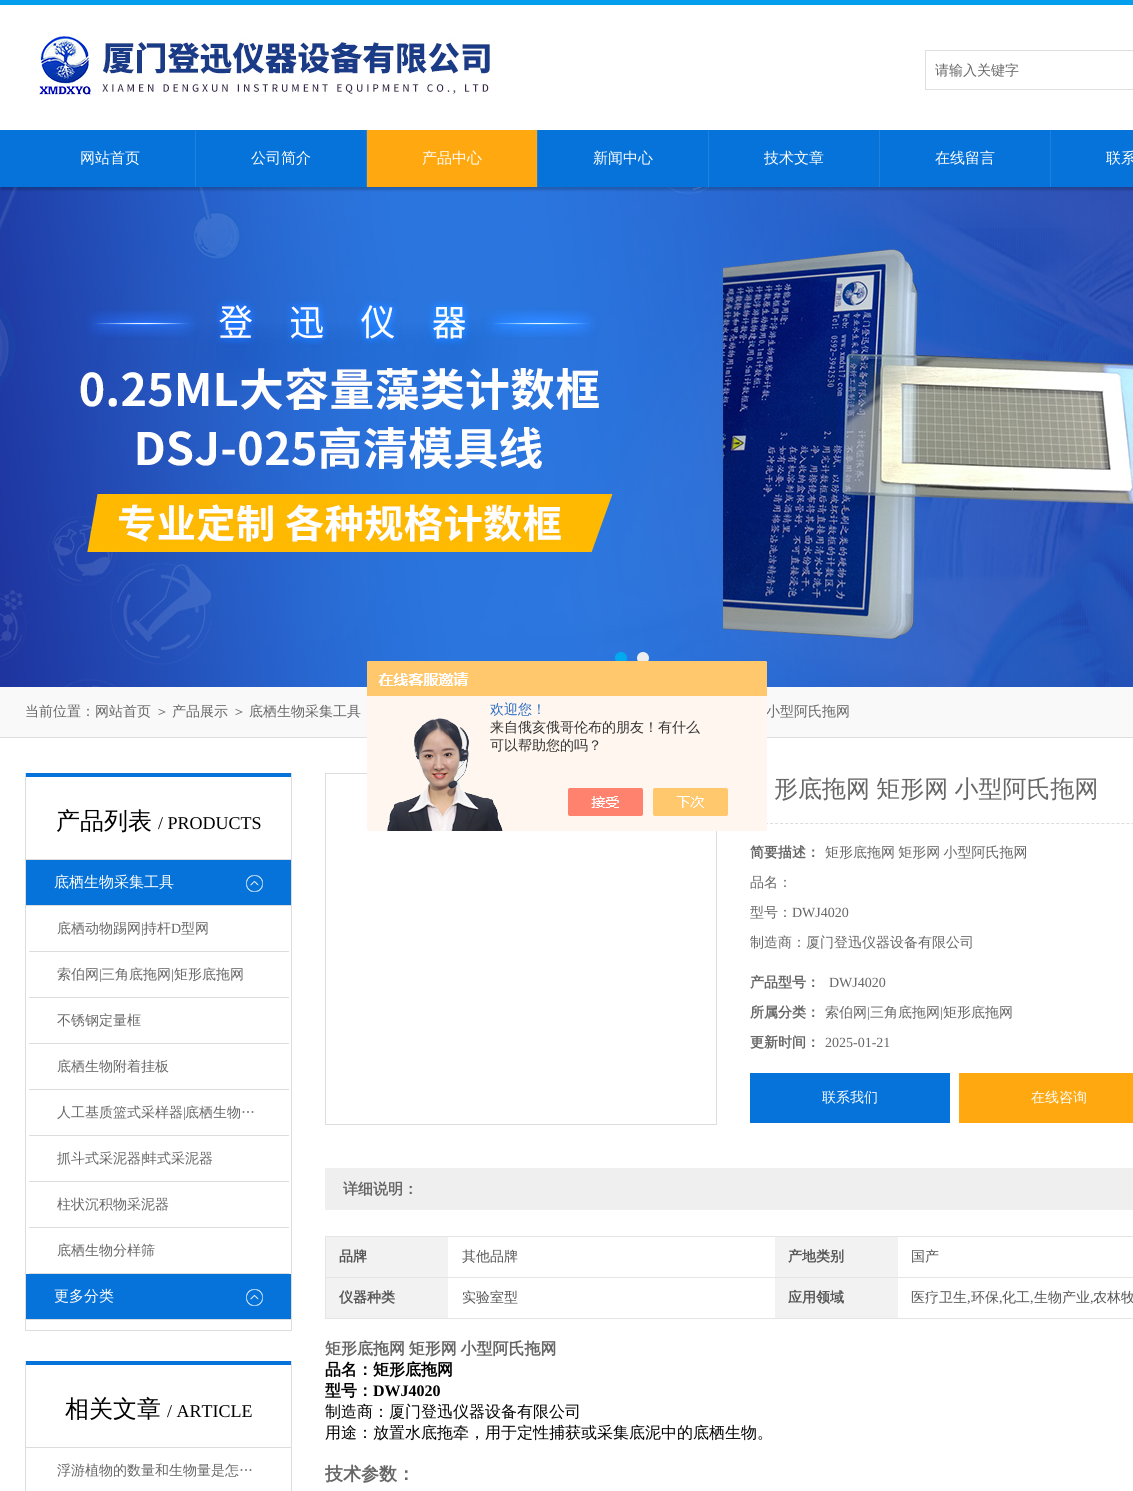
#include <cairo/cairo.h>
#include <math.h>
#include <stddef.h>

static cairo_t *cr;

static void use_color(int r, int g, int b) {
  cairo_set_source_rgb(cr, r / 255.0, g / 255.0, b / 255.0);
}

static void text(double x, double y, const char *s, const char *family, double size, int italic, int bold, int r, int g, int b) {
  cairo_select_font_face(cr, family, italic ? CAIRO_FONT_SLANT_ITALIC : CAIRO_FONT_SLANT_NORMAL,
    bold ? CAIRO_FONT_WEIGHT_BOLD : CAIRO_FONT_WEIGHT_NORMAL);
  cairo_set_font_size(cr, size);
  use_color(r, g, b);
  cairo_move_to(cr, x, y);
  cairo_show_text(cr, s);
}

static void spaced_text(double x, double y, const char *s, double letter, double word) {
  cairo_move_to(cr, x, y);
  while (*s) {
    char ch[5] = {0};
    int n = 0;
    do ch[n++] = *s++; while ((*s & 0xC0) == 0x80);
    cairo_show_text(cr, ch);
    cairo_rel_move_to(cr, letter + word * (*ch == ' '), 0);
  }
}

static void box(double x, double y, double w, double h, int r, int g, int b) {
  use_color(r, g, b);
  cairo_rectangle(cr, x, y, w, h);
  cairo_fill(cr);
}

static void round_rect(double x, double y, double w, double h, double r) {
  cairo_new_sub_path(cr);
  cairo_arc(cr, x + w - r, y + h - r, r, 0, M_PI / 2);
  cairo_arc(cr, x + r, y + h - r, r, M_PI / 2, M_PI);
  cairo_arc(cr, x + r, y + r, r, M_PI, 1.5 * M_PI);
  cairo_arc(cr, x + w - r, y + r, r, 1.5 * M_PI, 2 * M_PI);
  cairo_close_path(cr);
}

static void shadow(double x, double y, double w, double h, double r, double blur, double alpha) {
  cairo_push_group_with_content(cr, CAIRO_CONTENT_ALPHA);
  cairo_set_operator(cr, CAIRO_OPERATOR_SOURCE);
  for (int i = 15; i >= -15 && fmin(w, h) + blur * i / 3 > 0; i -= 2) {
    double e = blur * i / 6;
    cairo_set_source_rgba(cr, 0, 0, 0, alpha * erfc((i - 1) / 8.5) / 2);
    round_rect(x - e, y - e, w + 2 * e, h + 2 * e, fmax(0, fmin(r + e + blur * .6, fmin(w, h) / 2 + e)));
    cairo_fill(cr);
  }
  cairo_pattern_t *soft = cairo_pop_group(cr);
  cairo_mask(cr, soft);
  cairo_pattern_destroy(soft);
}

static void picture(const char *path, double x, double y, double w, double h) {
  cairo_surface_t *image = cairo_image_surface_create_from_png(path);
  cairo_save(cr);
  cairo_set_source_surface(cr, image, x, y);
  cairo_rectangle(cr, x, y, w, h);
  cairo_fill(cr);
  cairo_restore(cr);
  cairo_surface_destroy(image);
}

static void draw(void) {
  use_color(255, 255, 255);
  cairo_paint(cr);
  box(0, 0, 1133, 5, 3, 158, 238);
  picture("img_01.png", 34, 36, 456, 63);
  box(925, 50, 208, 1, 223, 223, 223);
  box(925, 89, 208, 1, 223, 223, 223);
  box(925, 50, 1, 40, 223, 223, 223);
  picture("img_02.png", 0, 187, 1133, 500);
  use_color(0, 0, 0);
  shadow(1, 135, 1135, 55, 0, 1, 0.2);
  box(0, 130, 1133, 57, 5, 115, 218);
  box(195, 130, 1, 57, 30, 129, 222);
  box(366, 130, 1, 57, 30, 129, 222);
  box(367, 130, 170, 57, 255, 168, 16);
  box(537, 130, 1, 57, 30, 129, 222);
  box(708, 130, 1, 57, 30, 129, 222);
  box(879, 130, 1, 57, 30, 129, 222);
  box(1050, 130, 1, 57, 30, 129, 222);
  use_color(0, 170, 239);
  cairo_arc(cr, 621, 658, 6, 0, 2 * M_PI);
  cairo_fill(cr);
  use_color(238, 238, 238);
  cairo_arc(cr, 643, 658, 6, 0, 2 * M_PI);
  cairo_fill(cr);
  box(0, 687, 1133, 50, 249, 249, 249);
  box(0, 737, 1133, 1, 223, 223, 223);
  box(291, 773, 1, 558, 221, 221, 221);
  box(25, 1330, 267, 1, 221, 221, 221);
  box(25, 773, 1, 558, 221, 221, 221);
  box(26, 773, 265, 4, 5, 115, 218);
  box(26, 859, 265, 1, 221, 221, 221);
  box(26, 860, 265, 45, 5, 115, 218);
  picture("img_04.png", 246, 875, 17, 17);
  box(26, 905, 265, 1, 221, 221, 221);
  box(29, 951, 260, 1, 221, 221, 221);
  box(29, 997, 260, 1, 221, 221, 221);
  box(29, 1043, 260, 1, 221, 221, 221);
  box(29, 1089, 260, 1, 221, 221, 221);
  box(29, 1135, 260, 1, 221, 221, 221);
  box(29, 1181, 260, 1, 221, 221, 221);
  box(29, 1227, 260, 1, 221, 221, 221);
  box(29, 1273, 260, 1, 221, 221, 221);
  box(26, 1274, 265, 45, 5, 115, 218);
  picture("img_04.png", 246, 1289, 17, 17);
  box(26, 1319, 265, 1, 221, 221, 221);
  box(291, 1361, 1, 130, 221, 221, 221);
  box(25, 1361, 1, 130, 221, 221, 221);
  box(26, 1361, 265, 4, 5, 115, 218);
  box(26, 1447, 265, 1, 221, 221, 221);
  cairo_rectangle(cr, 325.5, 773.5, 391, 351);
  cairo_set_line_width(cr, 1);
  cairo_stroke(cr);
  cairo_new_path(cr);
  cairo_move_to(cr, 750, 823.5);
  cairo_line_to(cr, 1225, 823.5);
  cairo_set_dash(cr, (double[]){3, 2.02}, 2, 0);
  cairo_stroke(cr);
  box(750, 1073, 200, 50, 5, 115, 218);
  box(959, 1073, 174, 50, 255, 168, 16);
  box(325, 1168, 808, 42, 239, 239, 239);
  box(325, 1236, 808, 1, 230, 229, 229);
  box(325, 1236, 1, 83, 230, 229, 229);
  box(326, 1237, 122, 40, 242, 242, 242);
  box(775, 1237, 123, 40, 242, 242, 242);
  box(325, 1277, 808, 1, 230, 229, 229);
  box(326, 1278, 122, 40, 242, 242, 242);
  box(775, 1278, 123, 40, 242, 242, 242);
  box(325, 1318, 808, 1, 230, 229, 229);
  text(935, 75, "请输入关键字", "WenQuanYi Zen Hei Medium", 14, 0, 0, 102, 102, 102);
  text(80, 163, "网站首页", "WenQuanYi Zen Hei Medium", 15, 0, 0, 255, 255, 255);
  text(251, 163, "公司简介", "WenQuanYi Zen Hei Medium", 15, 0, 0, 255, 255, 255);
  text(422, 163, "产品中心", "WenQuanYi Zen Hei Medium", 15, 0, 0, 255, 255, 255);
  text(593, 163, "新闻中心", "WenQuanYi Zen Hei Medium", 15, 0, 0, 255, 255, 255);
  text(764, 163, "技术文章", "WenQuanYi Zen Hei Medium", 15, 0, 0, 255, 255, 255);
  text(935, 163, "在线留言", "WenQuanYi Zen Hei Medium", 15, 0, 0, 255, 255, 255);
  text(1106, 163, "联系", "WenQuanYi Zen Hei Medium", 15, 0, 0, 255, 255, 255);
  text(25, 716, "当前位置：网站首页", "WenQuanYi Zen Hei Medium", 14, 0, 0, 102, 102, 102);
  text(155, 716, "＞", "WenQuanYi Zen Hei Medium", 14, 0, 0, 102, 102, 102);
  text(172, 716, "产品展示", "WenQuanYi Zen Hei Medium", 14, 0, 0, 102, 102, 102);
  text(232, 716, "＞", "WenQuanYi Zen Hei Medium", 14, 0, 0, 102, 102, 102);
  text(249, 716, "底栖生物采集工具", "WenQuanYi Zen Hei Medium", 14, 0, 0, 102, 102, 102);
  spaced_text(766, 716, "小型阿氏拖网", 0, -1);
  picture("img_03.png", 367, 661, 400, 170);
  text(490, 750, "可以帮助您的吗？", "WenQuanYi Zen Hei Medium", 14, 0, 0, 51, 51, 51);
  text(490, 732, "来自俄亥俄哥伦布的朋友！有什么", "WenQuanYi Zen Hei Medium", 14, 0, 0, 51, 51, 51);
  text(490, 714, "欢迎您！", "WenQuanYi Zen Hei Medium", 14, 0, 0, 46, 110, 198);
  text(56, 829, "产品列表", "WenQuanYi Zen Hei Medium", 24, 0, 0, 0, 0, 0);
  text(158, 829, "/ PRODUCTS", "Liberation Serif", 18, 0, 0, 0, 0, 0);
  text(54, 887, "底栖生物采集工具", "WenQuanYi Zen Hei Medium", 15, 0, 0, 255, 255, 255);
  text(57, 933, "底栖动物踢网", "WenQuanYi Zen Hei Medium", 14, 0, 0, 102, 102, 102);
  text(141, 933, "|", "Liberation Serif", 14, 0, 0, 102, 102, 102);
  text(143, 933, "持杆", "WenQuanYi Zen Hei Medium", 14, 0, 0, 102, 102, 102);
  text(171, 933, "D", "Liberation Serif", 14, 0, 0, 102, 102, 102);
  text(181, 933, "型网", "WenQuanYi Zen Hei Medium", 14, 0, 0, 102, 102, 102);
  text(57, 979, "索伯网", "WenQuanYi Zen Hei Medium", 14, 0, 0, 102, 102, 102);
  text(99, 979, "|", "Liberation Serif", 14, 0, 0, 102, 102, 102);
  text(101, 979, "三角底拖网", "WenQuanYi Zen Hei Medium", 14, 0, 0, 102, 102, 102);
  text(171, 979, "|", "Liberation Serif", 14, 0, 0, 102, 102, 102);
  text(174, 979, "矩形底拖网", "WenQuanYi Zen Hei Medium", 14, 0, 0, 102, 102, 102);
  text(57, 1025, "不锈钢定量框", "WenQuanYi Zen Hei Medium", 14, 0, 0, 102, 102, 102);
  text(57, 1071, "底栖生物附着挂板", "WenQuanYi Zen Hei Medium", 14, 0, 0, 102, 102, 102);
  text(57, 1117, "人工基质篮式采样器", "WenQuanYi Zen Hei Medium", 14, 0, 0, 102, 102, 102);
  text(183, 1117, "|", "Liberation Serif", 14, 0, 0, 102, 102, 102);
  text(185, 1117, "底栖生物…", "WenQuanYi Zen Hei Medium", 14, 0, 0, 102, 102, 102);
  text(57, 1163, "抓斗式采泥器", "WenQuanYi Zen Hei Medium", 14, 0, 0, 102, 102, 102);
  text(141, 1163, "|", "Liberation Serif", 14, 0, 0, 102, 102, 102);
  text(143, 1163, "蚌式采泥器", "WenQuanYi Zen Hei Medium", 14, 0, 0, 102, 102, 102);
  text(57, 1209, "柱状沉积物采泥器", "WenQuanYi Zen Hei Medium", 14, 0, 0, 102, 102, 102);
  text(57, 1255, "底栖生物分样筛", "WenQuanYi Zen Hei Medium", 14, 0, 0, 102, 102, 102);
  text(54, 1301, "更多分类", "WenQuanYi Zen Hei Medium", 15, 0, 0, 255, 255, 255);
  text(65, 1417, "相关文章", "WenQuanYi Zen Hei Medium", 24, 0, 0, 0, 0, 0);
  text(167, 1417, "/ ARTICLE", "Liberation Serif", 18, 0, 0, 0, 0, 0);
  text(57, 1475, "浮游植物的数量和生物量是怎…", "WenQuanYi Zen Hei Medium", 14, 0, 0, 102, 102, 102);
  cairo_set_font_size(cr, 24);
  spaced_text(774, 797, "形底拖网 矩形网 小型阿氏拖网", 0, -1);
  text(750, 857, "简要描述：", "WenQuanYi Zen Hei", 14, 0, 1, 102, 102, 102);
  cairo_select_font_face(cr, "WenQuanYi Zen Hei Medium", CAIRO_FONT_SLANT_NORMAL, CAIRO_FONT_WEIGHT_NORMAL);
  spaced_text(825, 857, "矩形底拖网 矩形网 小型阿氏拖网", 0, -1);
  text(750, 887, "品名：", "WenQuanYi Zen Hei Medium", 14, 0, 0, 102, 102, 102);
  text(750, 917, "型号：", "WenQuanYi Zen Hei Medium", 14, 0, 0, 102, 102, 102);
  text(792, 917, "DWJ4020", "Liberation Serif", 14, 0, 0, 102, 102, 102);
  text(750, 947, "制造商：厦门登迅仪器设备有限公司", "WenQuanYi Zen Hei Medium", 14, 0, 0, 102, 102, 102);
  text(750, 987, "产品型号：", "WenQuanYi Zen Hei", 14, 0, 1, 102, 102, 102);
  text(829, 987, "DWJ4020", "Liberation Serif", 14, 0, 0, 102, 102, 102);
  text(750, 1017, "所属分类：", "WenQuanYi Zen Hei", 14, 0, 1, 102, 102, 102);
  text(825, 1017, "索伯网", "WenQuanYi Zen Hei Medium", 14, 0, 0, 102, 102, 102);
  text(867, 1017, "|", "Liberation Serif", 14, 0, 0, 102, 102, 102);
  text(870, 1017, "三角底拖网", "WenQuanYi Zen Hei Medium", 14, 0, 0, 102, 102, 102);
  text(940, 1017, "|", "Liberation Serif", 14, 0, 0, 102, 102, 102);
  text(943, 1017, "矩形底拖网", "WenQuanYi Zen Hei Medium", 14, 0, 0, 102, 102, 102);
  text(750, 1047, "更新时间：", "WenQuanYi Zen Hei", 14, 0, 1, 102, 102, 102);
  text(825, 1047, "2025-01-21", "Liberation Serif", 14, 0, 0, 102, 102, 102);
  text(822, 1102, "联系我们", "WenQuanYi Zen Hei Medium", 14, 0, 0, 255, 255, 255);
  text(1031, 1102, "在线咨询", "WenQuanYi Zen Hei Medium", 14, 0, 0, 255, 255, 255);
  text(343, 1194, "详细说明：", "WenQuanYi Zen Hei", 15, 0, 1, 102, 102, 102);
  text(339, 1261, "品牌", "WenQuanYi Zen Hei", 14, 0, 1, 85, 85, 85);
  text(462, 1261, "其他品牌", "WenQuanYi Zen Hei Medium", 14, 0, 0, 85, 85, 85);
  text(788, 1261, "产地类别", "WenQuanYi Zen Hei", 14, 0, 1, 85, 85, 85);
  text(911, 1261, "国产", "WenQuanYi Zen Hei Medium", 14, 0, 0, 85, 85, 85);
  text(339, 1302, "仪器种类", "WenQuanYi Zen Hei", 14, 0, 1, 85, 85, 85);
  text(462, 1302, "实验室型", "WenQuanYi Zen Hei Medium", 14, 0, 0, 85, 85, 85);
  text(788, 1302, "应用领域", "WenQuanYi Zen Hei", 14, 0, 1, 85, 85, 85);
  text(911, 1302, "医疗卫生", "WenQuanYi Zen Hei Medium", 14, 0, 0, 85, 85, 85);
  text(967, 1302, ",", "Liberation Serif", 14, 0, 0, 85, 85, 85);
  text(971, 1302, "环保", "WenQuanYi Zen Hei Medium", 14, 0, 0, 85, 85, 85);
  text(999, 1302, ",", "Liberation Serif", 14, 0, 0, 85, 85, 85);
  text(1002, 1302, "化工", "WenQuanYi Zen Hei Medium", 14, 0, 0, 85, 85, 85);
  text(1030, 1302, ",", "Liberation Serif", 14, 0, 0, 85, 85, 85);
  text(1034, 1302, "生物产业", "WenQuanYi Zen Hei Medium", 14, 0, 0, 85, 85, 85);
  text(1090, 1302, ",", "Liberation Serif", 14, 0, 0, 85, 85, 85);
  text(1093, 1302, "农林牧", "WenQuanYi Zen Hei Medium", 14, 0, 0, 85, 85, 85);
  cairo_select_font_face(cr, "WenQuanYi Zen Hei", CAIRO_FONT_SLANT_NORMAL, CAIRO_FONT_WEIGHT_BOLD);
  cairo_set_font_size(cr, 16);
  use_color(102, 102, 102);
  spaced_text(325, 1354, "矩形底拖网 矩形网 小型阿氏拖网", 0, -1);
  text(325, 1375, "品名：矩形底拖网", "WenQuanYi Zen Hei", 16, 0, 1, 0, 0, 0);
  text(325, 1396, "型号：", "WenQuanYi Zen Hei", 16, 0, 1, 0, 0, 0);
  text(373, 1396, "DWJ4020", "Liberation Serif", 16, 0, 1, 0, 0, 0);
  text(325, 1417, "制造商：厦门登迅仪器设备有限公司", "WenQuanYi Zen Hei Medium", 16, 0, 0, 0, 0, 0);
  text(325, 1438, "用途：放置水底拖牵，用于定性捕获或采集底泥中的底栖生物。", "WenQuanYi Zen Hei Medium", 16, 0, 0, 0, 0, 0);
  text(325, 1480, "技术参数：", "WenQuanYi Zen Hei", 18, 0, 1, 102, 102, 102);
}

int main(void) {
  cairo_surface_t *surface = cairo_image_surface_create(CAIRO_FORMAT_RGB24, 1133, 1491);
  cr = cairo_create(surface);
  cairo_font_options_t *options = cairo_font_options_create();
  cairo_font_options_set_hint_metrics(options, CAIRO_HINT_METRICS_OFF);
  cairo_font_options_set_hint_style(options, CAIRO_HINT_STYLE_NONE);
  cairo_set_font_options(cr, options);
  cairo_set_miter_limit(cr, 4);
  draw();
  cairo_surface_write_to_png(surface, "out.png");
  cairo_font_options_destroy(options);
  cairo_destroy(cr);
  cairo_surface_destroy(surface);
  return 0;
}
